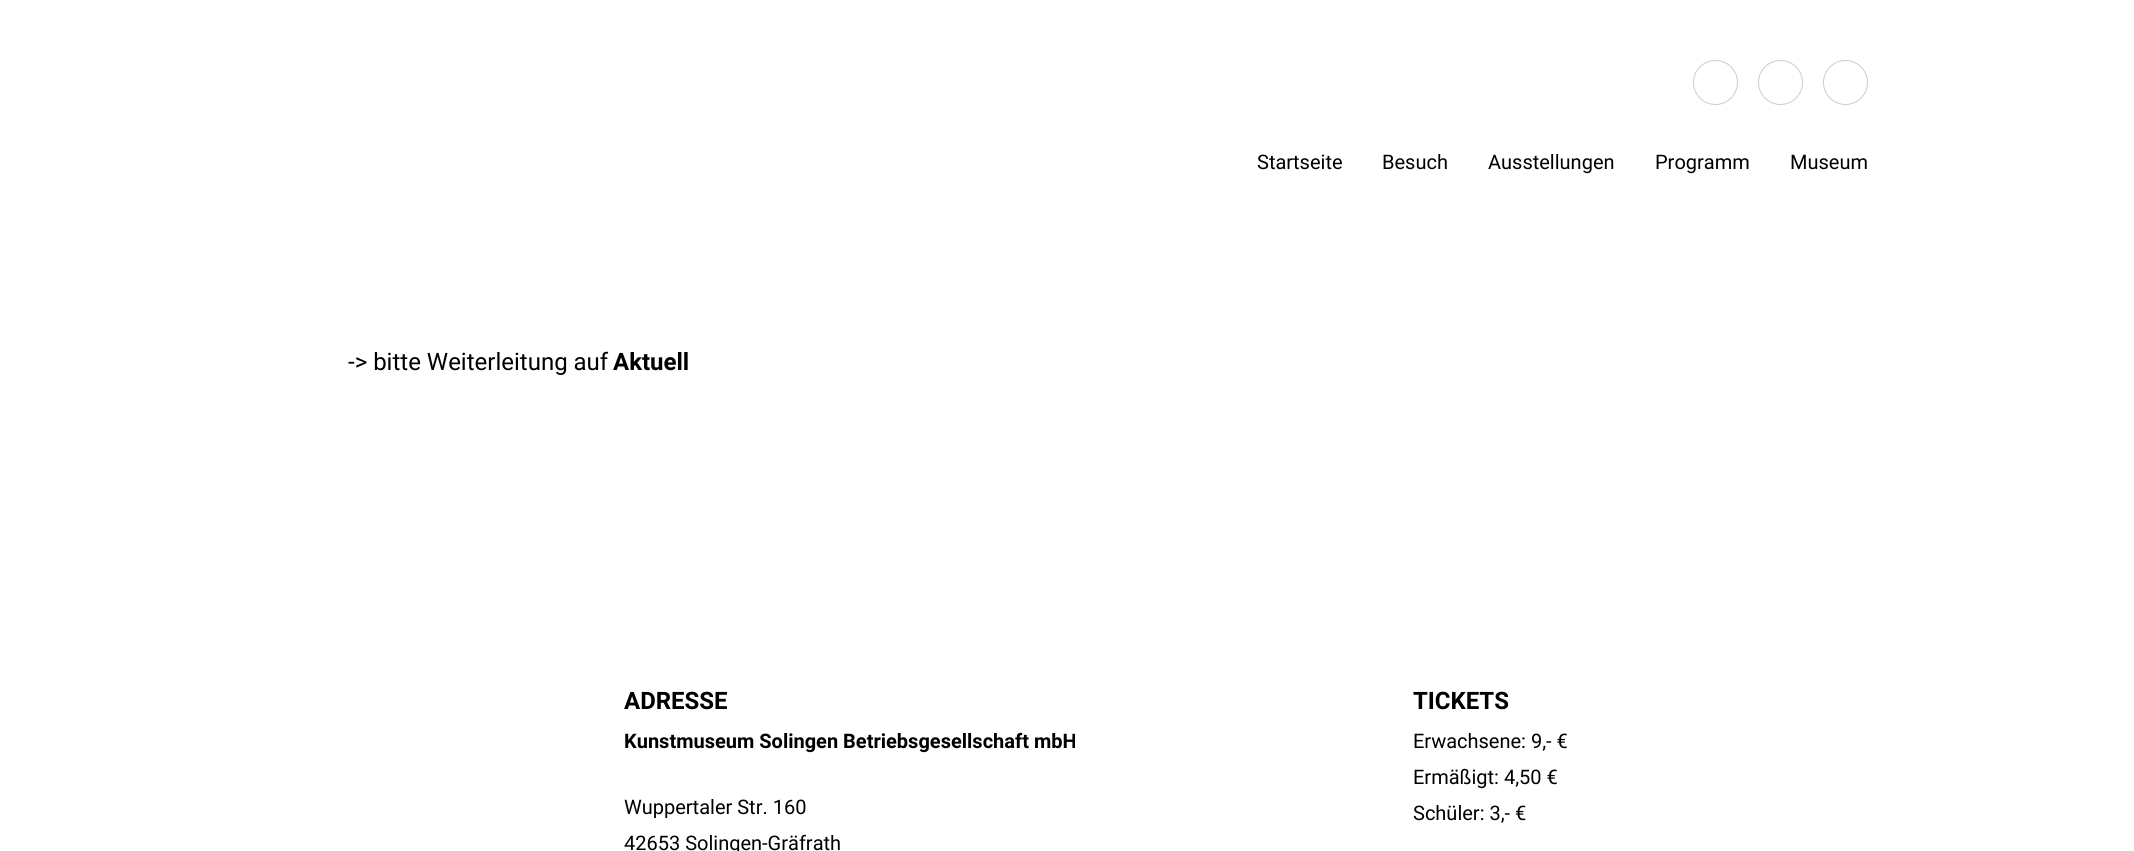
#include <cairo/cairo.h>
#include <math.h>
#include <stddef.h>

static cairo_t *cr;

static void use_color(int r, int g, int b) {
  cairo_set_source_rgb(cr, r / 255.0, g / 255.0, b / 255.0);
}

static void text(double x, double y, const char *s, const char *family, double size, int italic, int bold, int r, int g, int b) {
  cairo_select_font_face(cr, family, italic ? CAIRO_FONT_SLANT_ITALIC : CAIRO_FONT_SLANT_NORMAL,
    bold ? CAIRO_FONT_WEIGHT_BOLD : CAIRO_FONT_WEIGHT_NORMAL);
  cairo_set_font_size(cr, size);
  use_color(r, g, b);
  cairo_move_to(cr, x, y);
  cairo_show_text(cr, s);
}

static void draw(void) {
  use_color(255, 255, 255);
  cairo_paint(cr);
  cairo_arc(cr, 1715.5, 82.5, 22, 0, 2 * M_PI);
  use_color(204, 204, 204);
  cairo_set_line_width(cr, 1);
  cairo_stroke(cr);
  cairo_arc(cr, 1780.5, 82.5, 22, 0, 2 * M_PI);
  cairo_stroke(cr);
  cairo_arc(cr, 1845.5, 82.5, 22, 0, 2 * M_PI);
  cairo_stroke(cr);
  text(1257, 169, "Startseite", "Roboto", 20, 0, 0, 0, 0, 0);
  text(1382, 169, "Besuch", "Roboto", 20, 0, 0, 0, 0, 0);
  text(1488, 169, "Ausstellungen", "Roboto", 20, 0, 0, 0, 0, 0);
  text(1655, 169, "Programm", "Roboto", 20, 0, 0, 0, 0, 0);
  text(1790, 169, "Museum", "Roboto", 20, 0, 0, 0, 0, 0);
  text(348, 370, "-> bitte Weiterleitung auf", "Roboto", 24, 0, 0, 0, 0, 0);
  text(613, 370, "Aktuell", "Roboto", 24, 0, 1, 0, 0, 0);
  text(624, 709, "ADRESSE", "Roboto", 24, 0, 1, 0, 0, 0);
  text(624, 748, "Kunstmuseum Solingen Betriebsgesellschaft mbH", "Roboto", 20, 0, 1, 0, 0, 0);
  text(624, 814, "Wuppertaler Str. 160", "Roboto", 20, 0, 0, 0, 0, 0);
  text(624, 850, "42653 Solingen-Gräfrath", "Roboto", 20, 0, 0, 0, 0, 0);
  text(1413, 709, "TICKETS", "Roboto", 24, 0, 1, 0, 0, 0);
  text(1413, 748, "Erwachsene: 9,- €", "Roboto", 20, 0, 0, 0, 0, 0);
  text(1413, 784, "Ermäßigt: 4,50 €", "Roboto", 20, 0, 0, 0, 0, 0);
  text(1413, 820, "Schüler: 3,- €", "Roboto", 20, 0, 0, 0, 0, 0);
}

int main(void) {
  cairo_surface_t *surface = cairo_image_surface_create(CAIRO_FORMAT_RGB24, 2134, 851);
  cr = cairo_create(surface);
  cairo_font_options_t *options = cairo_font_options_create();
  cairo_font_options_set_hint_metrics(options, CAIRO_HINT_METRICS_OFF);
  cairo_font_options_set_hint_style(options, CAIRO_HINT_STYLE_NONE);
  cairo_set_font_options(cr, options);
  cairo_set_miter_limit(cr, 4);
  draw();
  cairo_surface_write_to_png(surface, "out.png");
  cairo_font_options_destroy(options);
  cairo_destroy(cr);
  cairo_surface_destroy(surface);
  return 0;
}
